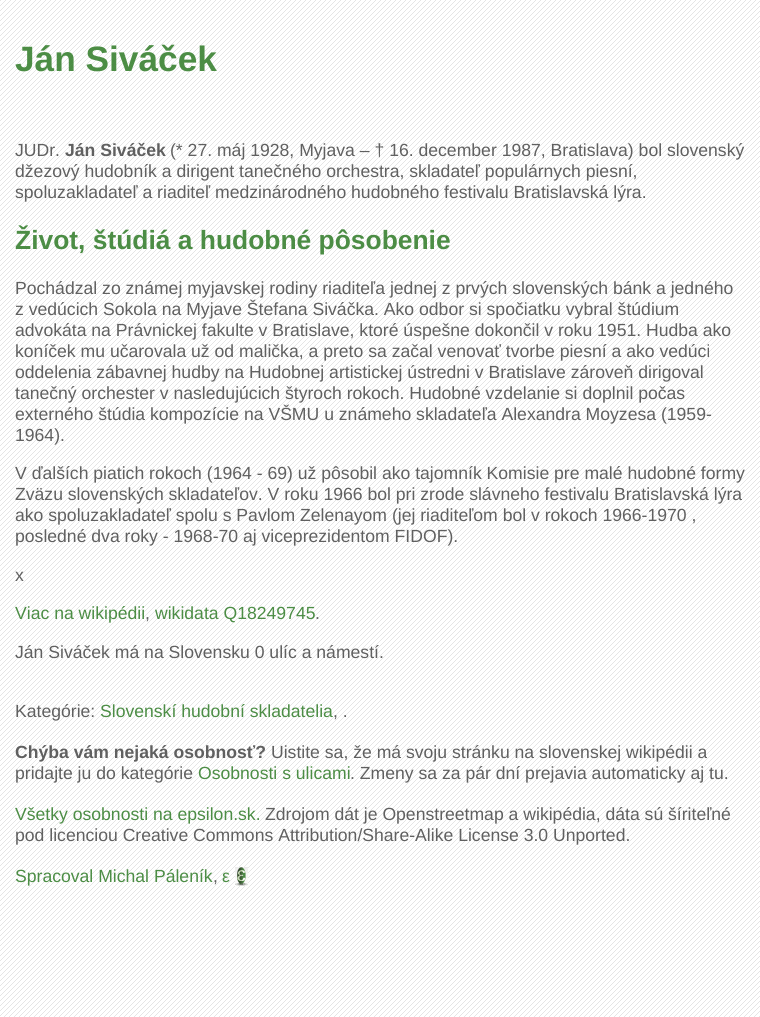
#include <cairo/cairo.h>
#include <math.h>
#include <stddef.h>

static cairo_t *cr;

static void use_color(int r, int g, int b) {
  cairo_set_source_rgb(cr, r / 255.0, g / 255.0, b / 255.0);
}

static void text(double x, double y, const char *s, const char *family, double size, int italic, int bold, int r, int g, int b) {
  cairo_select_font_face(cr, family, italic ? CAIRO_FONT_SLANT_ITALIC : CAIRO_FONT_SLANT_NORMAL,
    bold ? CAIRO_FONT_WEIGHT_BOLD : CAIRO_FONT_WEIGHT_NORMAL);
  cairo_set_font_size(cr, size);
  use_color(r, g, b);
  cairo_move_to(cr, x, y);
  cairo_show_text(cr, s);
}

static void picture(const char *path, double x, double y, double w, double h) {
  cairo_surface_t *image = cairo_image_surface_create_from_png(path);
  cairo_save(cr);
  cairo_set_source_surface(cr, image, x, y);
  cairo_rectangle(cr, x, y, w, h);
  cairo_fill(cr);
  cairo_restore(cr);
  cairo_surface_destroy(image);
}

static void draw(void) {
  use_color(255, 255, 255);
  cairo_paint(cr);
  picture("img_01.png", 0, 0, 760, 1017);
  picture("img_02.png", 235, 867, 13, 19);
  text(15, 71, "Ján Siváček", "Liberation Sans", 35.25, 0, 1, 76, 141, 69);
  text(15, 156, "JUDr.", "Liberation Sans", 17.6, 0, 0, 96, 96, 96);
  text(65, 156, "Ján Siváček", "Liberation Sans", 17.6, 0, 1, 96, 96, 96);
  text(170, 156, "(* 27. máj 1928, Myjava – † 16. december 1987, Bratislava) bol slovenský", "Liberation Sans", 17.6, 0, 0, 96, 96, 96);
  text(15, 177, "džezový hudobník a dirigent tanečného orchestra, skladateľ populárnych piesní,", "Liberation Sans", 17.6, 0, 0, 96, 96, 96);
  text(15, 198, "spoluzakladateľ a riaditeľ medzinárodného hudobného festivalu Bratislavská lýra.", "Liberation Sans", 17.6, 0, 0, 96, 96, 96);
  text(15, 249, "Život, štúdiá a hudobné pôsobenie", "Liberation Sans", 26.4, 0, 1, 76, 141, 69);
  text(15, 294, "Pochádzal zo známej myjavskej rodiny riaditeľa jednej z prvých slovenských bánk a jedného", "Liberation Sans", 17.6, 0, 0, 96, 96, 96);
  text(15, 315, "z vedúcich Sokola na Myjave Štefana Siváčka. Ako odbor si spočiatku vybral štúdium", "Liberation Sans", 17.6, 0, 0, 96, 96, 96);
  text(15, 336, "advokáta na Právnickej fakulte v Bratislave, ktoré úspešne dokončil v roku 1951. Hudba ako", "Liberation Sans", 17.6, 0, 0, 96, 96, 96);
  text(15, 357, "koníček mu učarovala už od malička, a preto sa začal venovať tvorbe piesní a ako vedúci", "Liberation Sans", 17.6, 0, 0, 96, 96, 96);
  text(15, 378, "oddelenia zábavnej hudby na Hudobnej artistickej ústredni v Bratislave zároveň dirigoval", "Liberation Sans", 17.6, 0, 0, 96, 96, 96);
  text(15, 399, "tanečný orchester v nasledujúcich štyroch rokoch. Hudobné vzdelanie si doplnil počas", "Liberation Sans", 17.6, 0, 0, 96, 96, 96);
  text(15, 420, "externého štúdia kompozície na VŠMU u známeho skladateľa Alexandra Moyzesa (1959-", "Liberation Sans", 17.6, 0, 0, 96, 96, 96);
  text(15, 441, "1964).", "Liberation Sans", 17.6, 0, 0, 96, 96, 96);
  text(15, 479, "V ďalších piatich rokoch (1964 - 69) už pôsobil ako tajomník Komisie pre malé hudobné formy", "Liberation Sans", 17.6, 0, 0, 96, 96, 96);
  text(15, 500, "Zväzu slovenských skladateľov. V roku 1966 bol pri zrode slávneho festivalu Bratislavská lýra", "Liberation Sans", 17.6, 0, 0, 96, 96, 96);
  text(15, 521, "ako spoluzakladateľ spolu s Pavlom Zelenayom (jej riaditeľom bol v rokoch 1966-1970 ,", "Liberation Sans", 17.6, 0, 0, 96, 96, 96);
  text(15, 542, "posledné dva roky - 1968-70 aj viceprezidentom FIDOF).", "Liberation Sans", 17.6, 0, 0, 96, 96, 96);
  text(15, 581, "x", "Liberation Sans", 17.6, 0, 0, 96, 96, 96);
  text(15, 619, "Viac na wikipédii", "Liberation Sans", 17.6, 0, 0, 76, 141, 69);
  text(145, 619, ",", "Liberation Sans", 17.6, 0, 0, 96, 96, 96);
  text(155, 619, "wikidata Q18249745", "Liberation Sans", 17.6, 0, 0, 76, 141, 69);
  text(315, 619, ".", "Liberation Sans", 17.6, 0, 0, 96, 96, 96);
  text(15, 658, "Ján Siváček má na Slovensku 0 ulíc a námestí.", "Liberation Sans", 17.6, 0, 0, 96, 96, 96);
  text(15, 717, "Kategórie:", "Liberation Sans", 17.6, 0, 0, 96, 96, 96);
  text(100, 717, "Slovenskí hudobní skladatelia", "Liberation Sans", 17.6, 0, 0, 76, 141, 69);
  text(333, 717, ", .", "Liberation Sans", 17.6, 0, 0, 96, 96, 96);
  text(15, 758, "Chýba vám nejaká osobnosť?", "Liberation Sans", 17.6, 0, 1, 96, 96, 96);
  text(271, 758, "Uistite sa, že má svoju stránku na slovenskej wikipédii a", "Liberation Sans", 17.6, 0, 0, 96, 96, 96);
  text(15, 779, "pridajte ju do kategórie", "Liberation Sans", 17.6, 0, 0, 96, 96, 96);
  text(198, 779, "Osobnosti s ulicami", "Liberation Sans", 17.6, 0, 0, 76, 141, 69);
  text(350, 779, ". Zmeny sa za pár dní prejavia automaticky aj tu.", "Liberation Sans", 17.6, 0, 0, 96, 96, 96);
  text(15, 820, "Všetky osobnosti na epsilon.sk.", "Liberation Sans", 17.6, 0, 0, 76, 141, 69);
  text(265, 820, "Zdrojom dát je Openstreetmap a wikipédia, dáta sú šíriteľné", "Liberation Sans", 17.6, 0, 0, 96, 96, 96);
  text(15, 841, "pod licenciou Creative Commons Attribution/Share-Alike License 3.0 Unported.", "Liberation Sans", 17.6, 0, 0, 96, 96, 96);
  text(15, 882, "Spracoval Michal Páleník", "Liberation Sans", 17.6, 0, 0, 76, 141, 69);
  text(213, 882, ",", "Liberation Sans", 17.6, 0, 0, 96, 96, 96);
  text(222, 882, "ε", "Liberation Sans", 17.6, 0, 0, 76, 141, 69);
}

int main(void) {
  cairo_surface_t *surface = cairo_image_surface_create(CAIRO_FORMAT_RGB24, 760, 1017);
  cr = cairo_create(surface);
  cairo_font_options_t *options = cairo_font_options_create();
  cairo_font_options_set_hint_metrics(options, CAIRO_HINT_METRICS_OFF);
  cairo_font_options_set_hint_style(options, CAIRO_HINT_STYLE_NONE);
  cairo_set_font_options(cr, options);
  cairo_set_miter_limit(cr, 4);
  draw();
  cairo_surface_write_to_png(surface, "out.png");
  cairo_font_options_destroy(options);
  cairo_destroy(cr);
  cairo_surface_destroy(surface);
  return 0;
}
